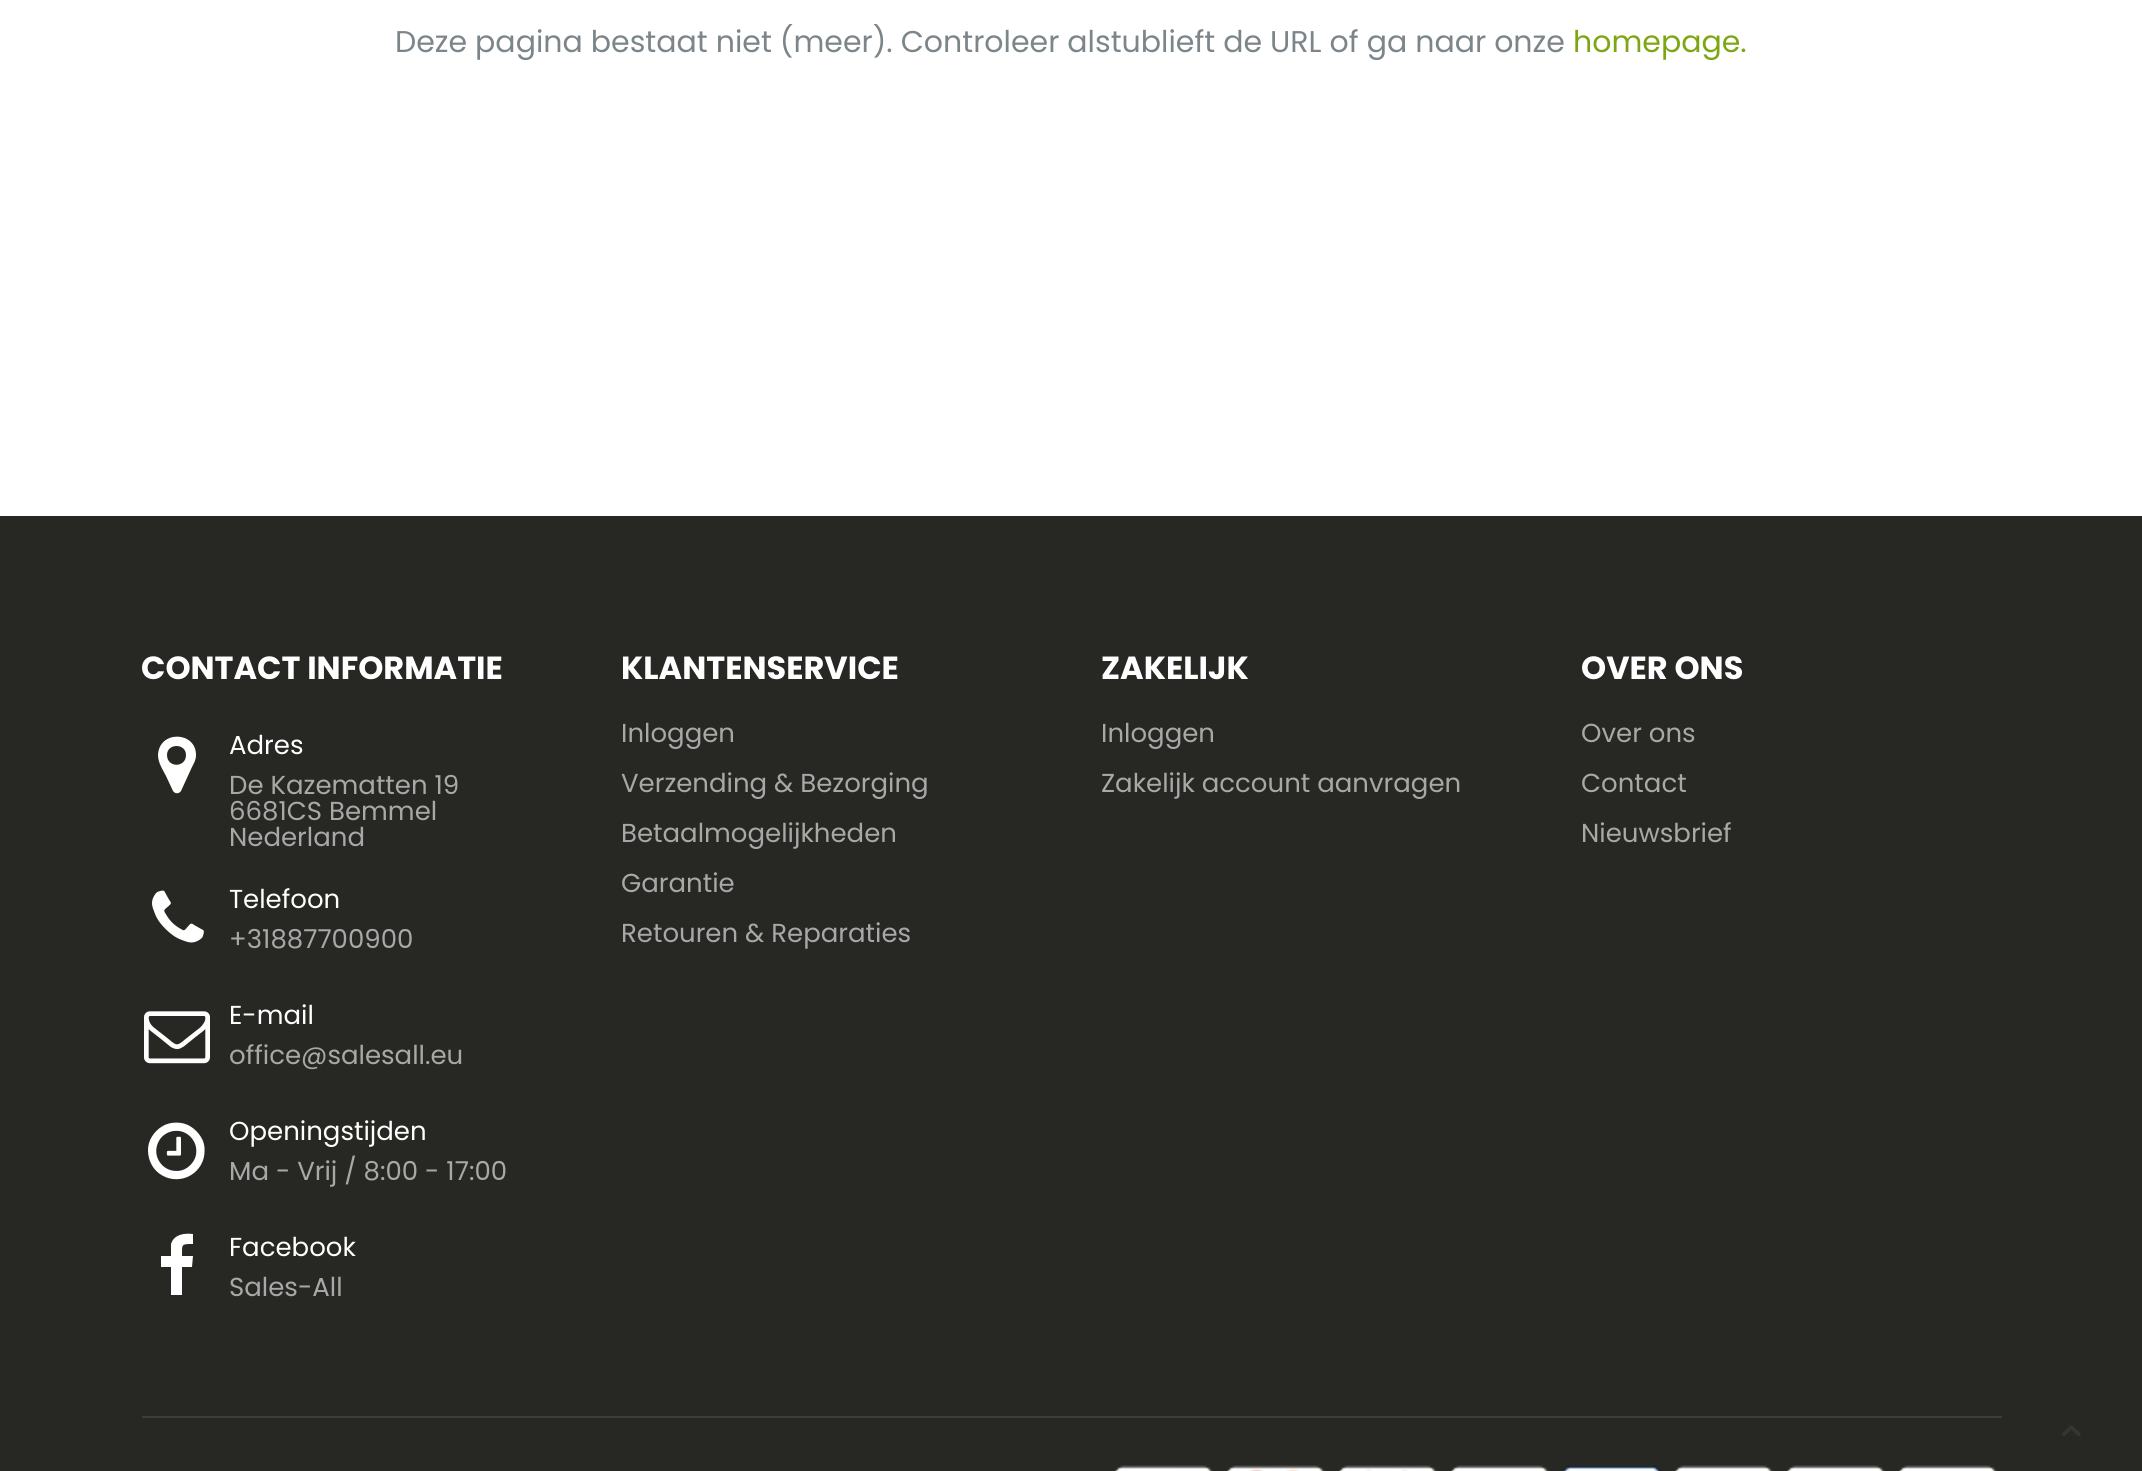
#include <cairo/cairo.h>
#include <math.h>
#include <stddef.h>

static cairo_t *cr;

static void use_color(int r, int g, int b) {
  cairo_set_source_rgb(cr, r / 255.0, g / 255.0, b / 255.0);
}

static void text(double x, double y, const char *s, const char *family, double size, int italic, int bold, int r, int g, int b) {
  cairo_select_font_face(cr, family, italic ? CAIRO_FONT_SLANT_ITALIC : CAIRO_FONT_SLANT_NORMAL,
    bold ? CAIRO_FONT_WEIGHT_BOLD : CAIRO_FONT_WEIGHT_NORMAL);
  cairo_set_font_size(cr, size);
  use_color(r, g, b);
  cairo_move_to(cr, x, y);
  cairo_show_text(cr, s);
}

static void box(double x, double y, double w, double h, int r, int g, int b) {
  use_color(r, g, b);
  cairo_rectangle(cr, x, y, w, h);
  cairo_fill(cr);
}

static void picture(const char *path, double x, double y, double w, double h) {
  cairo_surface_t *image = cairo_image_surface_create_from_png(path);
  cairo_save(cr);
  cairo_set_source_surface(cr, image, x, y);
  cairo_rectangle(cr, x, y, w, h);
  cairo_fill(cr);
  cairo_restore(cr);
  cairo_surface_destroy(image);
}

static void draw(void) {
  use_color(255, 255, 255);
  cairo_paint(cr);
  box(0, 516, 2142, 955, 39, 39, 35);
  use_color(255, 255, 255);
  cairo_new_path(cr);
  cairo_move_to(cr, 186, 755);
  cairo_curve_to(cr, 186, 743, 167, 743, 167, 755);
  cairo_curve_to(cr, 167, 768, 186, 768, 186, 755);
  cairo_close_path(cr);
  cairo_move_to(cr, 196, 755);
  cairo_curve_to(cr, 196, 760, 194, 763, 192, 767);
  cairo_line_to(cr, 181, 791);
  cairo_curve_to(cr, 179, 794, 175, 794, 173, 791);
  cairo_line_to(cr, 166, 776);
  cairo_curve_to(cr, 163, 770, 158, 763, 158, 755);
  cairo_curve_to(cr, 159, 730, 196, 731, 196, 755);
  cairo_close_path(cr);
  cairo_fill(cr);
  picture("img_01.png", 152, 890, 52, 53);
  picture("img_02.png", 144, 1011, 66, 53);
  picture("img_03.png", 148, 1122, 57, 58);
  cairo_new_path(cr);
  cairo_move_to(cr, 193, 1234);
  cairo_line_to(cr, 193, 1244);
  cairo_curve_to(cr, 181, 1244, 182, 1244, 182, 1256);
  cairo_line_to(cr, 193, 1256);
  cairo_line_to(cr, 192, 1267);
  cairo_line_to(cr, 182, 1267);
  cairo_line_to(cr, 182, 1295);
  cairo_line_to(cr, 171, 1295);
  cairo_line_to(cr, 171, 1267);
  cairo_line_to(cr, 161, 1267);
  cairo_line_to(cr, 161, 1256);
  cairo_line_to(cr, 171, 1256);
  cairo_line_to(cr, 171, 1244);
  cairo_curve_to(cr, 174, 1234, 185, 1233, 193, 1234);
  cairo_close_path(cr);
  cairo_fill(cr);
  box(142, 1416, 1860, 2, 61, 61, 56);
  picture("img_04.png", 1115, 1465, 882, 6);
  picture("img_05.png", 2062, 1425, 19, 11);
  text(395, 52, "Deze pagina bestaat niet (meer). Controleer alstublieft de URL of ga naar onze", "Poppins", 30, 0, 0, 123, 133, 138);
  text(1573, 52, "homepage.", "Poppins", 30, 0, 0, 126, 166, 19);
  text(141, 679, "CONTACT INFORMATIE", "Poppins", 32, 0, 1, 255, 255, 255);
  text(229, 754, "Adres", "Poppins", 26, 0, 0, 255, 255, 255);
  text(229, 794, "De Kazematten 19", "Poppins", 26, 0, 0, 168, 168, 168);
  text(229, 820, "6681CS Bemmel", "Poppins", 26, 0, 0, 168, 168, 168);
  text(229, 846, "Nederland", "Poppins", 26, 0, 0, 168, 168, 168);
  text(229, 908, "Telefoon", "Poppins", 26, 0, 0, 255, 255, 255);
  text(229, 948, "+31887700900", "Poppins", 26, 0, 0, 168, 168, 168);
  text(229, 1024, "E-mail", "Poppins", 26, 0, 0, 255, 255, 255);
  text(229, 1064, "office@salesall.eu", "Poppins", 26, 0, 0, 168, 168, 168);
  text(229, 1140, "Openingstijden", "Poppins", 26, 0, 0, 255, 255, 255);
  text(229, 1180, "Ma - Vrij / 8:00 - 17:00", "Poppins", 26, 0, 0, 168, 168, 168);
  text(229, 1256, "Facebook", "Poppins", 26, 0, 0, 255, 255, 255);
  text(229, 1296, "Sales-All", "Poppins", 26, 0, 0, 168, 168, 168);
  text(621, 679, "KLANTENSERVICE", "Poppins", 32, 0, 1, 255, 255, 255);
  text(621, 742, "Inloggen", "Poppins", 26, 0, 0, 168, 168, 168);
  text(621, 792, "Verzending & Bezorging", "Poppins", 26, 0, 0, 168, 168, 168);
  text(621, 842, "Betaalmogelijkheden", "Poppins", 26, 0, 0, 168, 168, 168);
  text(621, 892, "Garantie", "Poppins", 26, 0, 0, 168, 168, 168);
  text(621, 942, "Retouren & Reparaties", "Poppins", 26, 0, 0, 168, 168, 168);
  text(1101, 679, "ZAKELIJK", "Poppins", 32, 0, 1, 255, 255, 255);
  text(1101, 742, "Inloggen", "Poppins", 26, 0, 0, 168, 168, 168);
  text(1101, 792, "Zakelijk account aanvragen", "Poppins", 26, 0, 0, 168, 168, 168);
  text(1581, 679, "OVER ONS", "Poppins", 32, 0, 1, 255, 255, 255);
  text(1581, 742, "Over ons", "Poppins", 26, 0, 0, 168, 168, 168);
  text(1581, 792, "Contact", "Poppins", 26, 0, 0, 168, 168, 168);
  text(1581, 842, "Nieuwsbrief", "Poppins", 26, 0, 0, 168, 168, 168);
}

int main(void) {
  cairo_surface_t *surface = cairo_image_surface_create(CAIRO_FORMAT_RGB24, 2142, 1471);
  cr = cairo_create(surface);
  cairo_font_options_t *options = cairo_font_options_create();
  cairo_font_options_set_hint_metrics(options, CAIRO_HINT_METRICS_OFF);
  cairo_font_options_set_hint_style(options, CAIRO_HINT_STYLE_NONE);
  cairo_set_font_options(cr, options);
  cairo_set_miter_limit(cr, 4);
  draw();
  cairo_surface_write_to_png(surface, "out.png");
  cairo_font_options_destroy(options);
  cairo_destroy(cr);
  cairo_surface_destroy(surface);
  return 0;
}
